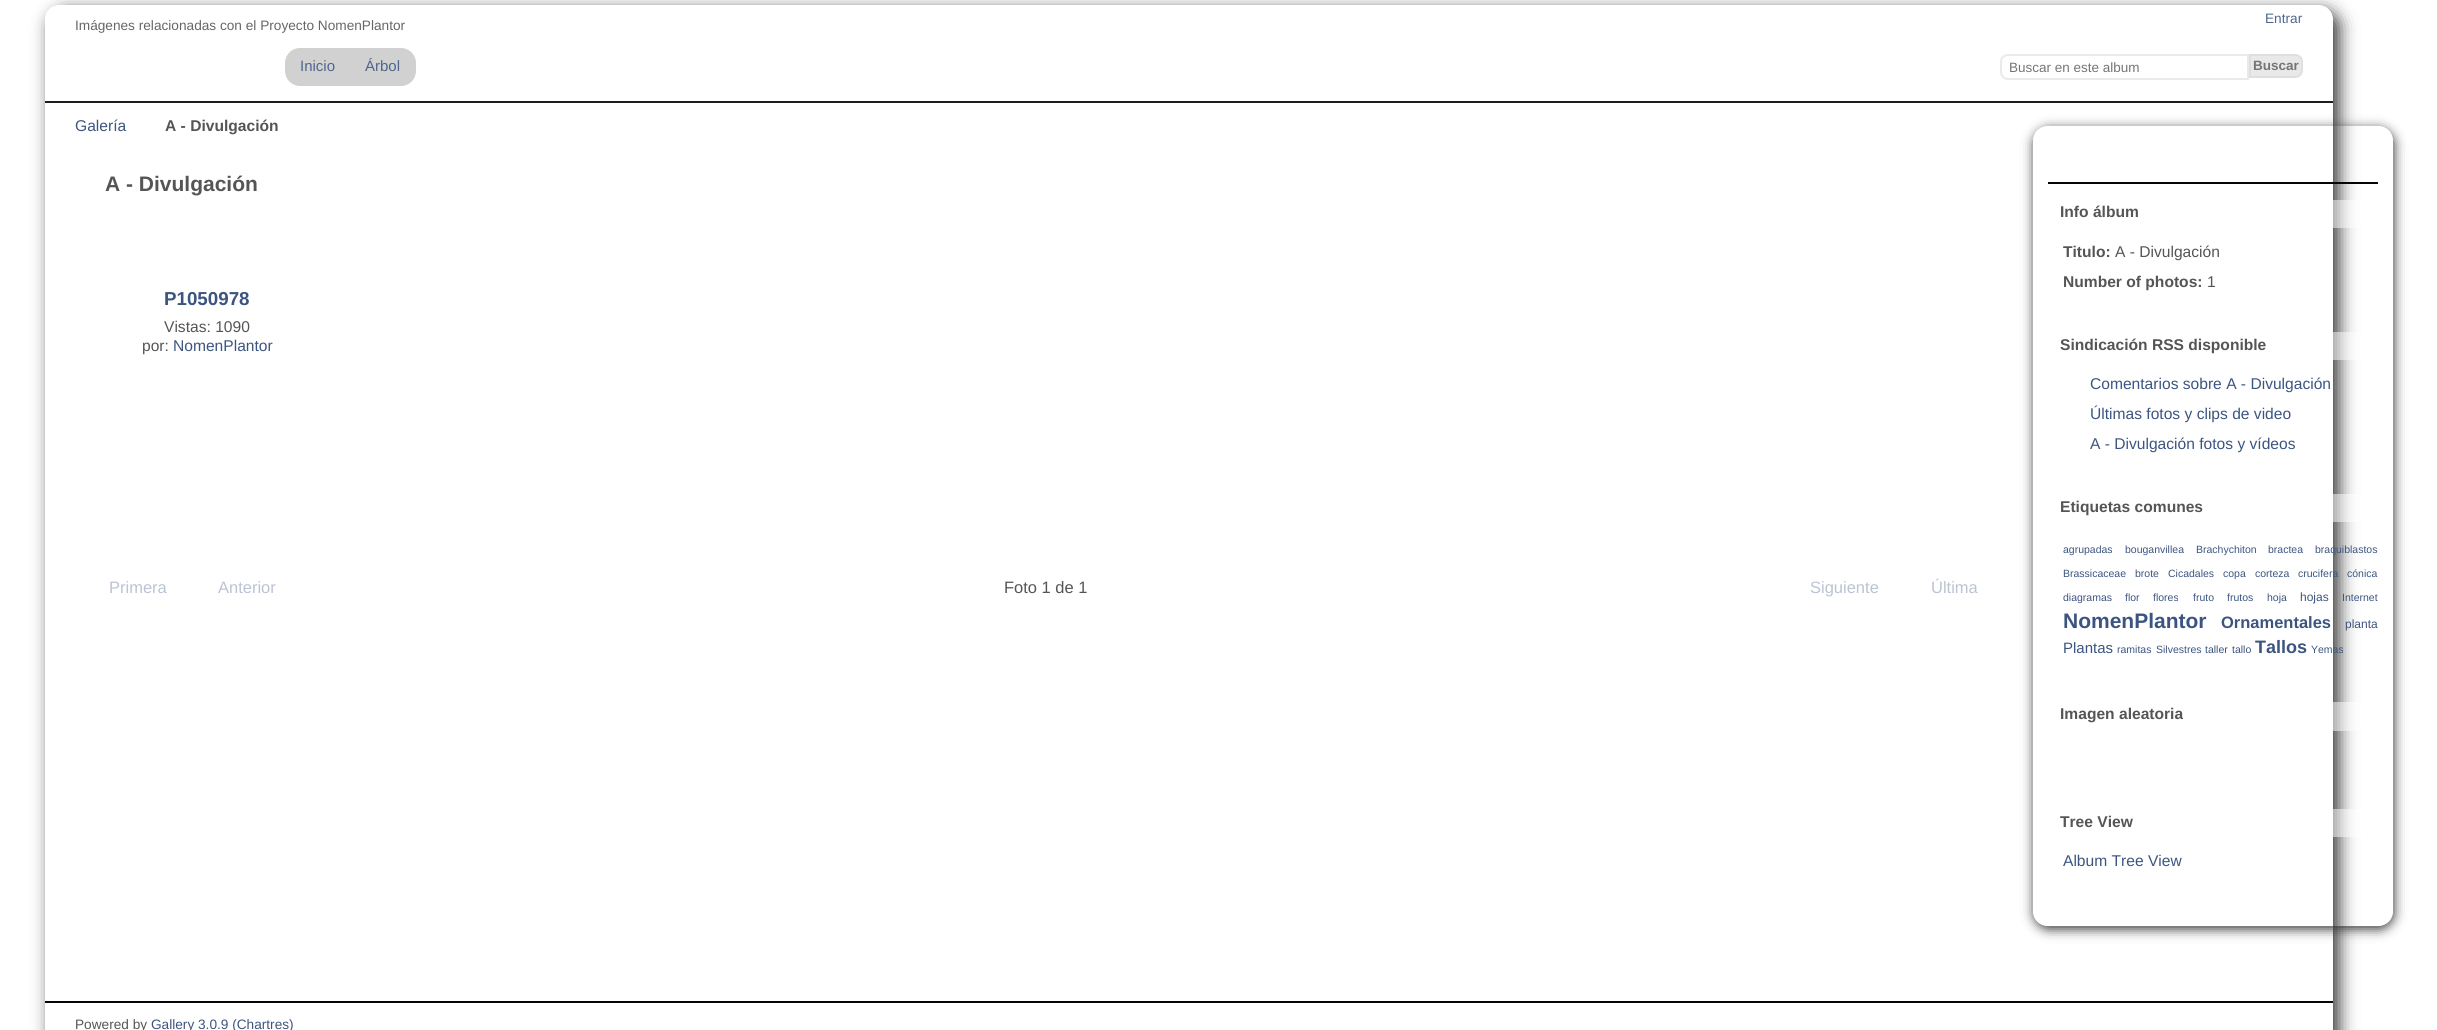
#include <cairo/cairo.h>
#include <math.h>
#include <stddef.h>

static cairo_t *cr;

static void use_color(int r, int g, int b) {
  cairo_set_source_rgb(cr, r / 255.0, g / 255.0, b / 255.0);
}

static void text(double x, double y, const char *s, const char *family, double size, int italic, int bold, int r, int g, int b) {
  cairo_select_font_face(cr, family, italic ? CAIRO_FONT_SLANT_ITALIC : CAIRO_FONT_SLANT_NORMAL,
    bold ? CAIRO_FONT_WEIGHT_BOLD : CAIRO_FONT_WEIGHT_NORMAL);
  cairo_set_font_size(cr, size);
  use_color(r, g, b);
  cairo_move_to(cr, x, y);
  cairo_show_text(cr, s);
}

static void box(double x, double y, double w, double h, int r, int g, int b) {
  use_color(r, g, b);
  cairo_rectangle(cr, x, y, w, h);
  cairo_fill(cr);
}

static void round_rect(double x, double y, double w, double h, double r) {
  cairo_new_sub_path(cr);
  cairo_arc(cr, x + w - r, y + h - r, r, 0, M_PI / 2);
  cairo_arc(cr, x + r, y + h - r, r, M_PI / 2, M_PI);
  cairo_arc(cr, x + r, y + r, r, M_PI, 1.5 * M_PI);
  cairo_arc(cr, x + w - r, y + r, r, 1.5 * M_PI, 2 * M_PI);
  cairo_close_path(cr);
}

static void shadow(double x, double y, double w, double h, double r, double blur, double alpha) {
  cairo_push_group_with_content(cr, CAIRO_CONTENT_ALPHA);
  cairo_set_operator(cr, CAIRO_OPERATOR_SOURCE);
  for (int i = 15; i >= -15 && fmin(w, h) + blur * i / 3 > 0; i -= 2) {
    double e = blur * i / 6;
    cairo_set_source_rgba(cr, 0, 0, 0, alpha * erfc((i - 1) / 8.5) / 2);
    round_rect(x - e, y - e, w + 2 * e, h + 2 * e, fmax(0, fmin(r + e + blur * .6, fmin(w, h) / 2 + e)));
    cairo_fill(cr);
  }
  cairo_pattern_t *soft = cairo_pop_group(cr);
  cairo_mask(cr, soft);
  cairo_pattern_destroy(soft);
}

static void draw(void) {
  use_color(255, 255, 255);
  cairo_paint(cr);
  cairo_save(cr);
  cairo_set_fill_rule(cr, CAIRO_FILL_RULE_EVEN_ODD);
  cairo_new_path(cr);
  cairo_move_to(cr, 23, 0);
  cairo_line_to(cr, 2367, 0);
  cairo_line_to(cr, 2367, 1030);
  cairo_line_to(cr, 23, 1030);
  cairo_close_path(cr);
  cairo_move_to(cr, 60, 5);
  cairo_line_to(cr, 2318, 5);
  cairo_curve_to(cr, 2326.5, 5, 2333, 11.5, 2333, 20);
  cairo_line_to(cr, 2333, 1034);
  cairo_curve_to(cr, 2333, 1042.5, 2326.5, 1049, 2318, 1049);
  cairo_line_to(cr, 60, 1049);
  cairo_curve_to(cr, 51.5, 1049, 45, 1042.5, 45, 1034);
  cairo_line_to(cr, 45, 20);
  cairo_curve_to(cr, 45, 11.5, 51.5, 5, 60, 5);
  cairo_close_path(cr);
  cairo_clip(cr);
  use_color(51, 51, 51);
  shadow(51, 11, 2288, 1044, 15, 9, 1);
  cairo_restore(cr);
  cairo_set_source_rgba(cr, 0.02, 0.02, 0.02, 0.9);
  cairo_rectangle(cr, 45, 101, 2288, 2);
  cairo_fill(cr);
  use_color(209, 209, 209);
  round_rect(285, 48, 131, 38, 15);
  cairo_fill(cr);
  cairo_new_path(cr);
  cairo_move_to(cr, 2008, 55);
  cairo_line_to(cr, 2248, 55);
  cairo_line_to(cr, 2248, 79);
  cairo_line_to(cr, 2008, 79);
  cairo_curve_to(cr, 2004, 79, 2001, 76, 2001, 72);
  cairo_line_to(cr, 2001, 62);
  cairo_curve_to(cr, 2001, 58, 2004, 55, 2008, 55);
  cairo_close_path(cr);
  use_color(234, 234, 234);
  cairo_stroke(cr);
  use_color(233, 233, 233);
  cairo_new_path(cr);
  cairo_move_to(cr, 2250, 55);
  cairo_line_to(cr, 2295, 55);
  cairo_curve_to(cr, 2299, 55, 2302, 58, 2302, 62);
  cairo_line_to(cr, 2302, 70);
  cairo_curve_to(cr, 2302, 74, 2299, 77, 2295, 77);
  cairo_line_to(cr, 2250, 77);
  cairo_close_path(cr);
  cairo_fill_preserve(cr);
  use_color(223, 223, 223);
  cairo_stroke(cr);
  cairo_save(cr);
  cairo_set_fill_rule(cr, CAIRO_FILL_RULE_EVEN_ODD);
  cairo_new_path(cr);
  cairo_move_to(cr, 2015, 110);
  cairo_line_to(cr, 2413, 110);
  cairo_line_to(cr, 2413, 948);
  cairo_line_to(cr, 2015, 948);
  cairo_close_path(cr);
  cairo_move_to(cr, 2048, 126);
  cairo_line_to(cr, 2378, 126);
  cairo_curve_to(cr, 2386.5, 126, 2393, 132.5, 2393, 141);
  cairo_line_to(cr, 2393, 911);
  cairo_curve_to(cr, 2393, 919.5, 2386.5, 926, 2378, 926);
  cairo_line_to(cr, 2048, 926);
  cairo_curve_to(cr, 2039.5, 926, 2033, 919.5, 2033, 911);
  cairo_line_to(cr, 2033, 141);
  cairo_curve_to(cr, 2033, 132.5, 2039.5, 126, 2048, 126);
  cairo_close_path(cr);
  cairo_clip(cr);
  use_color(51, 51, 51);
  shadow(2034, 129, 360, 800, 15, 6, 1);
  cairo_restore(cr);
  box(2048, 182, 330, 2, 5, 5, 5);
  cairo_set_source_rgba(cr, 1, 1, 1, 0.5);
  round_rect(2048, 200, 330, 28, 8);
  cairo_fill(cr);
  round_rect(2048, 332, 330, 28, 8);
  cairo_fill(cr);
  round_rect(2048, 494, 330, 28, 8);
  cairo_fill(cr);
  round_rect(2048, 702, 330, 29, 8);
  cairo_fill(cr);
  round_rect(2048, 809, 330, 28, 8);
  cairo_fill(cr);
  box(45, 1001, 2288, 2, 5, 5, 5);
  text(75, 30, "Imágenes relacionadas con el Proyecto NomenPlantor", "Liberation Sans", 13.65, 0, 0, 102, 102, 102);
  text(2265, 23, "Entrar", "Liberation Sans", 13.65, 0, 0, 80, 102, 141);
  text(300, 71, "Inicio", "Liberation Sans", 15, 0, 0, 80, 102, 141);
  text(365, 71, "Árbol", "Liberation Sans", 15, 0, 0, 80, 102, 141);
  text(2009, 72, "Buscar en este album", "Liberation Sans", 13.5, 0, 0, 117, 117, 117);
  text(2253, 70, "Buscar", "Liberation Sans", 13.5, 0, 1, 117, 117, 117);
  text(75, 131, "Galería", "Liberation Sans", 15.6, 0, 0, 60, 85, 128);
  text(165, 131, "A - Divulgación", "Liberation Sans", 15.6, 0, 1, 85, 85, 85);
  text(105, 191, "A - Divulgación", "Liberation Sans", 21, 0, 1, 85, 85, 85);
  text(164, 305, "P1050978", "Liberation Sans", 18.75, 0, 1, 60, 85, 128);
  text(164, 332, "Vistas: 1090", "Liberation Sans", 15.6, 0, 0, 85, 85, 85);
  text(142, 351, "por:", "Liberation Sans", 15.6, 0, 0, 85, 85, 85);
  text(173, 351, "NomenPlantor", "Liberation Sans", 15.6, 0, 0, 60, 85, 128);
  text(109, 593, "Primera", "Liberation Sans", 16.5, 0, 0, 187, 196, 211);
  text(218, 593, "Anterior", "Liberation Sans", 16.5, 0, 0, 187, 196, 211);
  text(1004, 593, "Foto 1 de 1", "Liberation Sans", 16.5, 0, 0, 85, 85, 85);
  text(1810, 593, "Siguiente", "Liberation Sans", 16.5, 0, 0, 187, 196, 211);
  text(1931, 593, "Última", "Liberation Sans", 16.5, 0, 0, 187, 196, 211);
  text(2060, 217, "Info álbum", "Liberation Sans", 15.6, 0, 1, 85, 85, 85);
  text(2063, 257, "Titulo:", "Liberation Sans", 15.6, 0, 1, 85, 85, 85);
  text(2115, 257, "A - Divulgación", "Liberation Sans", 15.6, 0, 0, 85, 85, 85);
  text(2063, 287, "Number of photos:", "Liberation Sans", 15.6, 0, 1, 85, 85, 85);
  text(2207, 287, "1", "Liberation Sans", 15.6, 0, 0, 85, 85, 85);
  text(2060, 350, "Sindicación RSS disponible", "Liberation Sans", 15.6, 0, 1, 85, 85, 85);
  text(2090, 389, "Comentarios sobre A - Divulgación", "Liberation Sans", 15.6, 0, 0, 60, 85, 128);
  text(2090, 419, "Últimas fotos y clips de video", "Liberation Sans", 15.6, 0, 0, 60, 85, 128);
  text(2090, 449, "A - Divulgación fotos y vídeos", "Liberation Sans", 15.6, 0, 0, 60, 85, 128);
  text(2060, 512, "Etiquetas comunes", "Liberation Sans", 15.6, 0, 1, 85, 85, 85);
  text(2063, 553, "agrupadas", "Liberation Sans", 10.5, 0, 0, 60, 85, 128);
  text(2125, 553, "bouganvillea", "Liberation Sans", 10.5, 0, 0, 60, 85, 128);
  text(2196, 553, "Brachychiton", "Liberation Sans", 10.5, 0, 0, 60, 85, 128);
  text(2268, 553, "bractea", "Liberation Sans", 10.5, 0, 0, 60, 85, 128);
  text(2315, 553, "braquiblastos", "Liberation Sans", 10.5, 0, 0, 60, 85, 128);
  text(2063, 577, "Brassicaceae", "Liberation Sans", 10.5, 0, 0, 60, 85, 128);
  text(2135, 577, "brote", "Liberation Sans", 10.5, 0, 0, 60, 85, 128);
  text(2168, 577, "Cicadales", "Liberation Sans", 10.5, 0, 0, 60, 85, 128);
  text(2223, 577, "copa", "Liberation Sans", 10.5, 0, 0, 60, 85, 128);
  text(2255, 577, "corteza", "Liberation Sans", 10.5, 0, 0, 60, 85, 128);
  text(2298, 577, "crucifera", "Liberation Sans", 10.5, 0, 0, 60, 85, 128);
  text(2347, 577, "cónica", "Liberation Sans", 10.5, 0, 0, 60, 85, 128);
  text(2063, 601, "diagramas", "Liberation Sans", 10.5, 0, 0, 60, 85, 128);
  text(2125, 601, "flor", "Liberation Sans", 10.5, 0, 0, 60, 85, 128);
  text(2153, 601, "flores", "Liberation Sans", 10.5, 0, 0, 60, 85, 128);
  text(2193, 601, "fruto", "Liberation Sans", 10.5, 0, 0, 60, 85, 128);
  text(2227, 601, "frutos", "Liberation Sans", 10.5, 0, 0, 60, 85, 128);
  text(2267, 601, "hoja", "Liberation Sans", 10.5, 0, 0, 60, 85, 128);
  text(2300, 601, "hojas", "Liberation Sans", 12, 0, 0, 60, 85, 128);
  text(2342, 601, "Internet", "Liberation Sans", 10.5, 0, 0, 60, 85, 128);
  text(2063, 628, "NomenPlantor", "Liberation Sans", 21, 0, 1, 60, 85, 128);
  text(2221, 628, "Ornamentales", "Liberation Sans", 16.5, 0, 1, 60, 85, 128);
  text(2345, 628, "planta", "Liberation Sans", 12, 0, 0, 60, 85, 128);
  text(2063, 653, "Plantas", "Liberation Sans", 15, 0, 0, 60, 85, 128);
  text(2117, 653, "ramitas", "Liberation Sans", 10.5, 0, 0, 60, 85, 128);
  text(2156, 653, "Silvestres", "Liberation Sans", 10.5, 0, 0, 60, 85, 128);
  text(2205, 653, "taller", "Liberation Sans", 10.5, 0, 0, 60, 85, 128);
  text(2232, 653, "tallo", "Liberation Sans", 10.5, 0, 0, 60, 85, 128);
  text(2255, 653, "Tallos", "Liberation Sans", 18, 0, 1, 60, 85, 128);
  text(2311, 653, "Yemas", "Liberation Sans", 10.5, 0, 0, 60, 85, 128);
  text(2060, 719, "Imagen aleatoria", "Liberation Sans", 15.6, 0, 1, 85, 85, 85);
  text(2060, 827, "Tree View", "Liberation Sans", 15.6, 0, 1, 85, 85, 85);
  text(2063, 866, "Album Tree View", "Liberation Sans", 15.6, 0, 0, 60, 85, 128);
  text(75, 1029, "Powered by", "Liberation Sans", 13.65, 0, 0, 85, 85, 85);
  text(151, 1029, "Gallery 3.0.9 (Chartres)", "Liberation Sans", 13.65, 0, 0, 60, 85, 128);
}

int main(void) {
  cairo_surface_t *surface = cairo_image_surface_create(CAIRO_FORMAT_RGB24, 2437, 1030);
  cr = cairo_create(surface);
  cairo_font_options_t *options = cairo_font_options_create();
  cairo_font_options_set_hint_metrics(options, CAIRO_HINT_METRICS_OFF);
  cairo_font_options_set_hint_style(options, CAIRO_HINT_STYLE_NONE);
  cairo_set_font_options(cr, options);
  cairo_set_miter_limit(cr, 4);
  draw();
  cairo_surface_write_to_png(surface, "out.png");
  cairo_font_options_destroy(options);
  cairo_destroy(cr);
  cairo_surface_destroy(surface);
  return 0;
}
